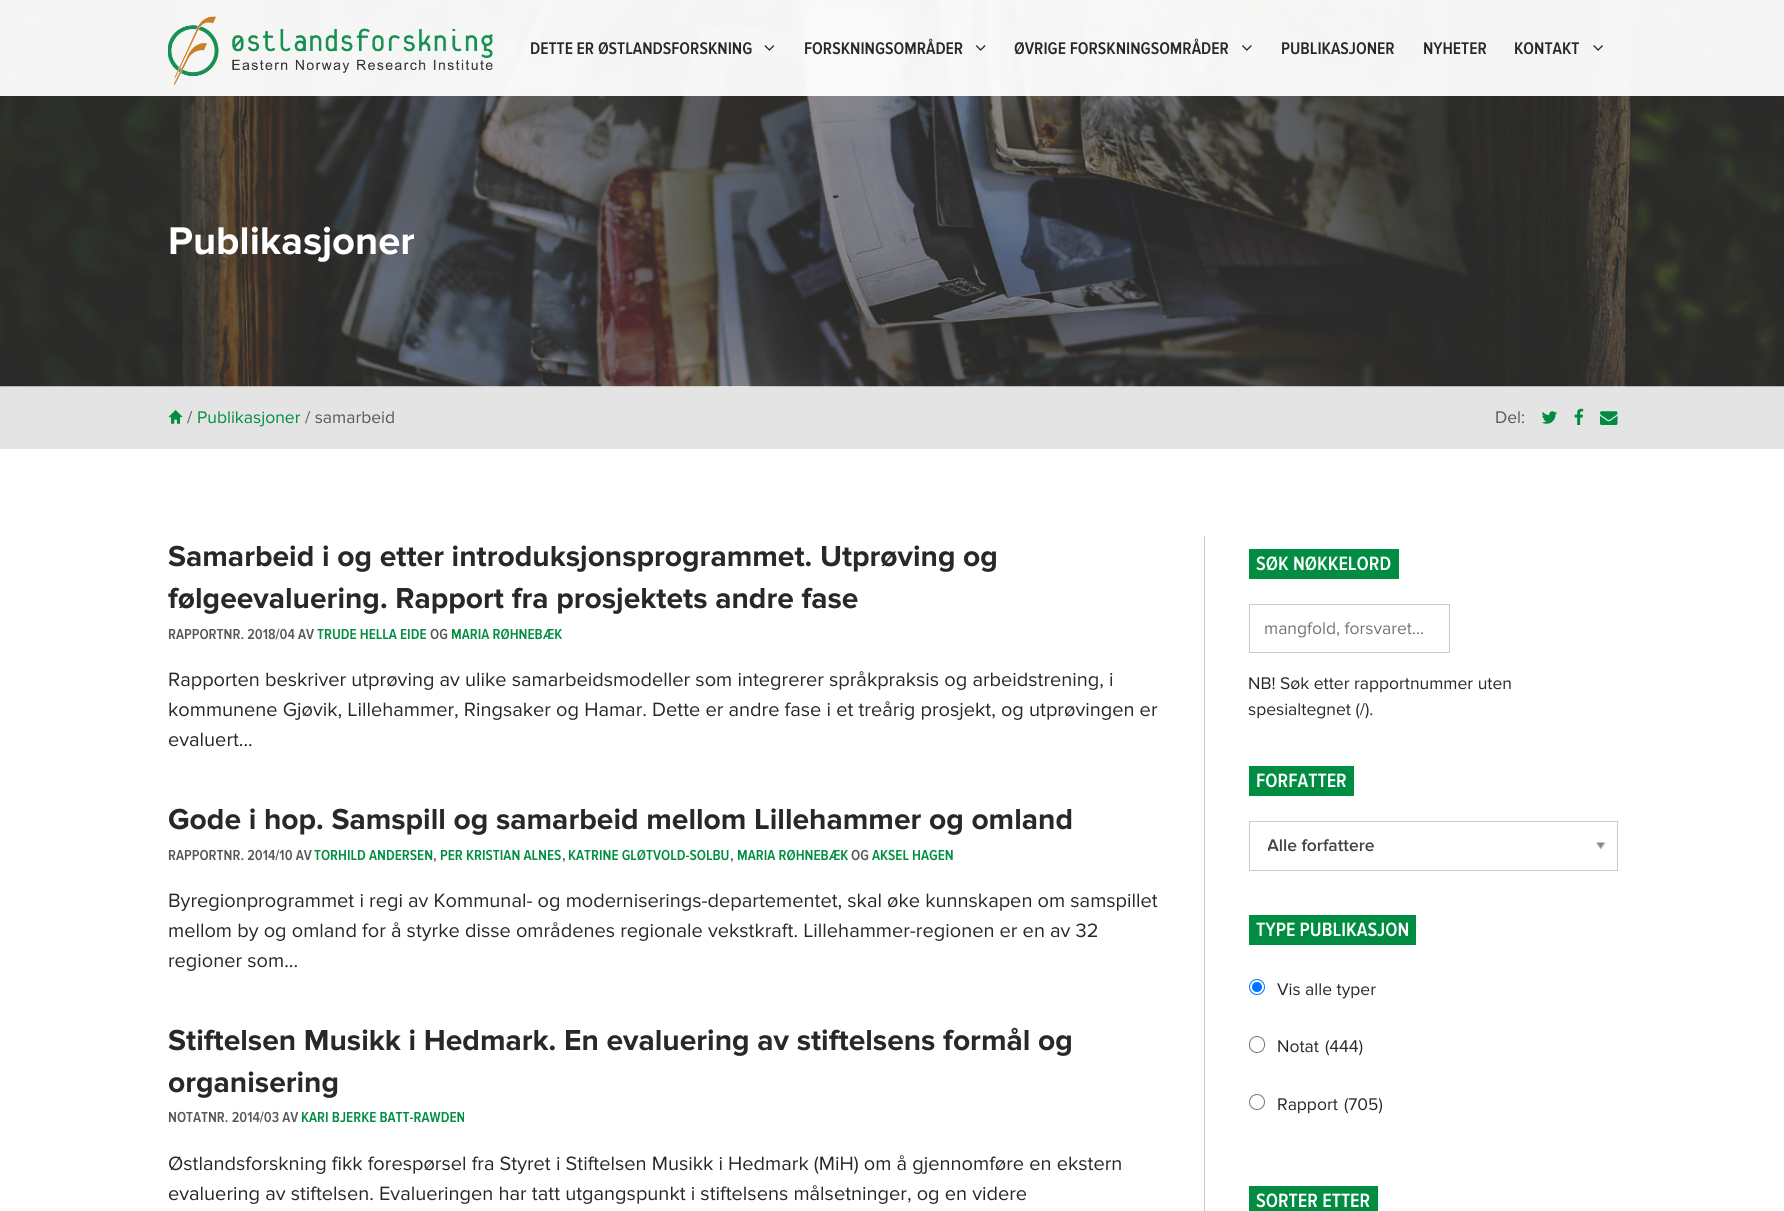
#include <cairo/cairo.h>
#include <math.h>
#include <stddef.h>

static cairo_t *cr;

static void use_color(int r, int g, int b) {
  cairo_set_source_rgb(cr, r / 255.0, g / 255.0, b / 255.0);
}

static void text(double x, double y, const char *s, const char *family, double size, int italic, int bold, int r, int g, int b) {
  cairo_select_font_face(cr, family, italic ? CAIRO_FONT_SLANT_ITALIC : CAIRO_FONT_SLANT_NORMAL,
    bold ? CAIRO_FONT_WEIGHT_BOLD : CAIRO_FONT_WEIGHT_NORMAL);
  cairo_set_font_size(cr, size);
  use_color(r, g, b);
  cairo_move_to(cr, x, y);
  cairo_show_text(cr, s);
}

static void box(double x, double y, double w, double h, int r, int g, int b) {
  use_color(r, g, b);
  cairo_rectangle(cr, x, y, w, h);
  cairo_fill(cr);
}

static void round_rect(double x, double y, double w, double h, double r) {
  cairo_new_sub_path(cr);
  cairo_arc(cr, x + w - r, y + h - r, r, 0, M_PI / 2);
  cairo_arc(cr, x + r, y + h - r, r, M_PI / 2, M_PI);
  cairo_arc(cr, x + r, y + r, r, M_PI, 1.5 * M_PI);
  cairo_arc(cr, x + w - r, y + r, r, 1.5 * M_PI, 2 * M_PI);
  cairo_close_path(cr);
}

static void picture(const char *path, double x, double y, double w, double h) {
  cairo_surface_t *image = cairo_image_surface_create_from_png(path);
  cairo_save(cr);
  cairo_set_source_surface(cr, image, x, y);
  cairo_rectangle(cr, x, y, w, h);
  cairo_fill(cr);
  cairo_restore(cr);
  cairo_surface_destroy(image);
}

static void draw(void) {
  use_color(255, 255, 255);
  cairo_paint(cr);
  box(0, 386, 1784, 63, 228, 228, 228);
  picture("img_06.png", 0, 0, 1784, 387);
  cairo_set_source_rgba(cr, 1, 1, 1, 0.95);
  cairo_rectangle(cr, 0, 0, 1784, 96);
  cairo_fill(cr);
  picture("img_01.png", 168, 16, 325, 69);
  picture("img_02.png", 764, 45, 11, 6);
  picture("img_03.png", 975, 45, 11, 6);
  picture("img_04.png", 1242, 45, 10, 6);
  picture("img_05.png", 1593, 45, 10, 6);
  picture("img_07.png", 1541, 411, 16, 13);
  picture("img_08.png", 1574, 408, 10, 17);
  picture("img_09.png", 1600, 411, 18, 14);
  box(1204, 536, 1, 675, 202, 202, 202);
  box(1249, 549, 150, 30, 0, 141, 65);
  cairo_rectangle(cr, 1249.5, 604.5, 200, 48);
  use_color(202, 202, 202);
  cairo_set_line_width(cr, 1);
  cairo_stroke(cr);
  box(1249, 766, 105, 30, 0, 141, 65);
  cairo_rectangle(cr, 1249.5, 821.5, 368, 49);
  use_color(202, 202, 202);
  cairo_stroke(cr);
  picture("img_10.png", 1596, 842, 10, 8);
  box(1249, 915, 167, 30, 0, 141, 65);
  cairo_arc(cr, 1257, 987, 7.5, 0, 2 * M_PI);
  use_color(0, 117, 255);
  cairo_stroke(cr);
  cairo_arc(cr, 1257, 987, 5, 0, 2 * M_PI);
  cairo_fill(cr);
  round_rect(1249.5, 1036.5, 15, 16, 7.5);
  use_color(118, 118, 118);
  cairo_stroke(cr);
  cairo_arc(cr, 1257, 1102, 7.5, 0, 2 * M_PI);
  cairo_stroke(cr);
  box(1249, 1186, 129, 25, 0, 141, 65);
  text(530, 54, "DETTE ER ØSTLANDSFORSKNING", "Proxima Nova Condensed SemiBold", 17.5, 0, 0, 40, 40, 40);
  text(804, 54, "FORSKNINGSOMRÅDER", "Proxima Nova Condensed SemiBold", 17.5, 0, 0, 40, 40, 40);
  text(1014, 54, "ØVRIGE FORSKNINGSOMRÅDER", "Proxima Nova Condensed SemiBold", 17.5, 0, 0, 40, 40, 40);
  text(1281, 54, "PUBLIKASJONER", "Proxima Nova Condensed SemiBold", 17.5, 0, 0, 40, 40, 40);
  text(1423, 54, "NYHETER", "Proxima Nova Condensed SemiBold", 17.5, 0, 0, 40, 40, 40);
  text(1514, 54, "KONTAKT", "Proxima Nova Condensed SemiBold", 17.5, 0, 0, 40, 40, 40);
  text(168, 254, "Publikasjoner", "Proxima Nova", 40, 0, 1, 255, 255, 255);
  text(168, 422, "H", "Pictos", 17.5, 0, 0, 0, 141, 65);
  text(187, 423, "/", "Proxima Nova", 17.5, 0, 0, 88, 88, 88);
  text(197, 423, "Publikasjoner", "Proxima Nova", 17.5, 0, 0, 0, 141, 65);
  text(305, 423, "/ samarbeid", "Proxima Nova", 17.5, 0, 0, 88, 88, 88);
  text(1495, 423, "Del:", "Proxima Nova", 17.5, 0, 0, 88, 88, 88);
  text(168, 566, "Samarbeid i og etter introduksjonsprogrammet. Utprøving og", "Proxima Nova", 30, 0, 1, 40, 40, 40);
  text(168, 608, "følgeevaluering. Rapport fra prosjektets andre fase", "Proxima Nova", 30, 0, 1, 40, 40, 40);
  text(168, 639, "RAPPORTNR. 2018/04 AV", "Proxima Nova Condensed SemiBold", 15, 0, 0, 88, 88, 88);
  text(317, 639, "TRUDE HELLA EIDE", "Proxima Nova Condensed SemiBold", 15, 0, 0, 0, 141, 65);
  text(430, 639, "OG", "Proxima Nova Condensed SemiBold", 15, 0, 0, 88, 88, 88);
  text(451, 639, "MARIA RØHNEBÆK", "Proxima Nova Condensed SemiBold", 15, 0, 0, 0, 141, 65);
  text(168, 686, "Rapporten beskriver utprøving av ulike samarbeidsmodeller som integrerer språkpraksis og arbeidstrening, i", "Proxima Nova", 20, 0, 0, 40, 40, 40);
  text(168, 716, "kommunene Gjøvik, Lillehammer, Ringsaker og Hamar. Dette er andre fase i et treårig prosjekt, og utprøvingen er", "Proxima Nova", 20, 0, 0, 40, 40, 40);
  text(168, 746, "evaluert...", "Proxima Nova", 20, 0, 0, 40, 40, 40);
  text(168, 829, "Gode i hop. Samspill og samarbeid mellom Lillehammer og omland", "Proxima Nova", 30, 0, 1, 40, 40, 40);
  text(168, 860, "RAPPORTNR. 2014/10 AV", "Proxima Nova Condensed SemiBold", 15, 0, 0, 88, 88, 88);
  text(314, 860, "TORHILD ANDERSEN", "Proxima Nova Condensed SemiBold", 15, 0, 0, 0, 141, 65);
  text(433, 860, ",", "Proxima Nova Condensed SemiBold", 15, 0, 0, 88, 88, 88);
  text(440, 860, "PER KRISTIAN ALNES", "Proxima Nova Condensed SemiBold", 15, 0, 0, 0, 141, 65);
  text(562, 860, ",", "Proxima Nova Condensed SemiBold", 15, 0, 0, 88, 88, 88);
  text(568, 860, "KATRINE GLØTVOLD-SOLBU", "Proxima Nova Condensed SemiBold", 15, 0, 0, 0, 141, 65);
  text(730, 860, ",", "Proxima Nova Condensed SemiBold", 15, 0, 0, 88, 88, 88);
  text(737, 860, "MARIA RØHNEBÆK", "Proxima Nova Condensed SemiBold", 15, 0, 0, 0, 141, 65);
  text(851, 860, "OG", "Proxima Nova Condensed SemiBold", 15, 0, 0, 88, 88, 88);
  text(872, 860, "AKSEL HAGEN", "Proxima Nova Condensed SemiBold", 15, 0, 0, 0, 141, 65);
  text(168, 907, "Byregionprogrammet i regi av Kommunal- og moderniserings-departementet, skal øke kunnskapen om samspillet", "Proxima Nova", 20, 0, 0, 40, 40, 40);
  text(168, 937, "mellom by og omland for å styrke disse områdenes regionale vekstkraft. Lillehammer-regionen er en av 32", "Proxima Nova", 20, 0, 0, 40, 40, 40);
  text(168, 967, "regioner som...", "Proxima Nova", 20, 0, 0, 40, 40, 40);
  text(168, 1050, "Stiftelsen Musikk i Hedmark. En evaluering av stiftelsens formål og", "Proxima Nova", 30, 0, 1, 40, 40, 40);
  text(168, 1092, "organisering", "Proxima Nova", 30, 0, 1, 40, 40, 40);
  text(168, 1122, "NOTATNR. 2014/03 AV", "Proxima Nova Condensed SemiBold", 15, 0, 0, 88, 88, 88);
  text(301, 1122, "KARI BJERKE BATT-RAWDEN", "Proxima Nova Condensed SemiBold", 15, 0, 0, 0, 141, 65);
  text(168, 1170, "Østlandsforskning fikk forespørsel fra Styret i Stiftelsen Musikk i Hedmark (MiH) om å gjennomføre en ekstern", "Proxima Nova", 20, 0, 0, 40, 40, 40);
  text(168, 1200, "evaluering av stiftelsen. Evalueringen har tatt utgangspunkt i stiftelsens målsetninger, og en videre", "Proxima Nova", 20, 0, 0, 40, 40, 40);
  text(1256, 570, "SØK NØKKELORD", "Proxima Nova Condensed SemiBold", 20, 0, 0, 255, 255, 255);
  text(1264, 634, "mangfold, forsvaret…", "Proxima Nova", 17.5, 0, 0, 117, 117, 117);
  text(1248, 689, "NB! Søk etter rapportnummer uten", "Proxima Nova", 17.5, 0, 0, 40, 40, 40);
  text(1248, 715, "spesialtegnet (/).", "Proxima Nova", 17.5, 0, 0, 40, 40, 40);
  text(1256, 787, "FORFATTER", "Proxima Nova Condensed SemiBold", 20, 0, 0, 255, 255, 255);
  cairo_save(cr);
  cairo_rectangle(cr, 1268, 831, 298, 30);
  cairo_clip(cr);
  text(1267, 851, "Alle forfattere", "Proxima Nova SemiBold", 17.5, 0, 0, 68, 68, 68);
  cairo_restore(cr);
  text(1256, 936, "TYPE PUBLIKASJON", "Proxima Nova Condensed SemiBold", 20, 0, 0, 255, 255, 255);
  text(1277, 995, "Vis alle typer", "Proxima Nova", 17.5, 0, 0, 40, 40, 40);
  text(1277, 1052, "Notat", "Proxima Nova", 17.5, 0, 0, 40, 40, 40);
  text(1325, 1052, "(444)", "Proxima Nova", 17.5, 0, 0, 40, 40, 40);
  text(1277, 1110, "Rapport", "Proxima Nova", 17.5, 0, 0, 40, 40, 40);
  text(1344, 1110, "(705)", "Proxima Nova", 17.5, 0, 0, 40, 40, 40);
  text(1256, 1207, "SORTER ETTER", "Proxima Nova Condensed SemiBold", 20, 0, 0, 255, 255, 255);
}

int main(void) {
  cairo_surface_t *surface = cairo_image_surface_create(CAIRO_FORMAT_RGB24, 1784, 1211);
  cr = cairo_create(surface);
  cairo_font_options_t *options = cairo_font_options_create();
  cairo_font_options_set_hint_metrics(options, CAIRO_HINT_METRICS_OFF);
  cairo_font_options_set_hint_style(options, CAIRO_HINT_STYLE_NONE);
  cairo_set_font_options(cr, options);
  cairo_set_miter_limit(cr, 4);
  draw();
  cairo_surface_write_to_png(surface, "out.png");
  cairo_font_options_destroy(options);
  cairo_destroy(cr);
  cairo_surface_destroy(surface);
  return 0;
}
